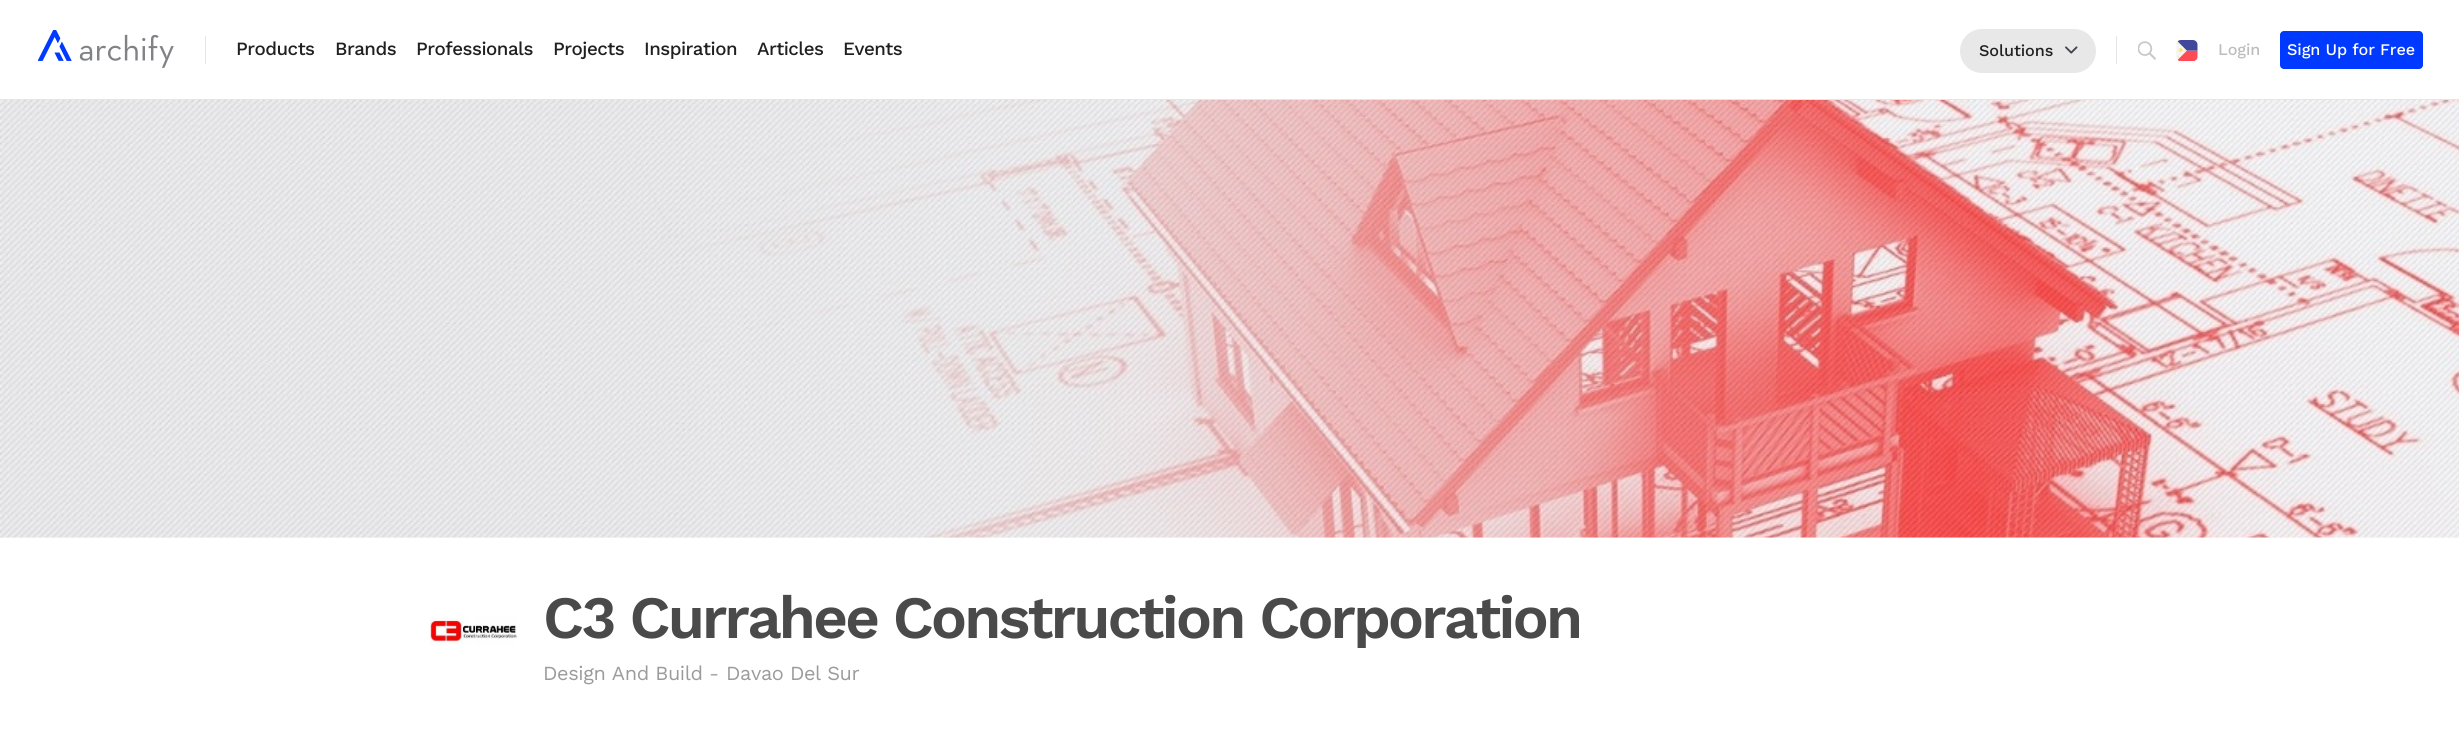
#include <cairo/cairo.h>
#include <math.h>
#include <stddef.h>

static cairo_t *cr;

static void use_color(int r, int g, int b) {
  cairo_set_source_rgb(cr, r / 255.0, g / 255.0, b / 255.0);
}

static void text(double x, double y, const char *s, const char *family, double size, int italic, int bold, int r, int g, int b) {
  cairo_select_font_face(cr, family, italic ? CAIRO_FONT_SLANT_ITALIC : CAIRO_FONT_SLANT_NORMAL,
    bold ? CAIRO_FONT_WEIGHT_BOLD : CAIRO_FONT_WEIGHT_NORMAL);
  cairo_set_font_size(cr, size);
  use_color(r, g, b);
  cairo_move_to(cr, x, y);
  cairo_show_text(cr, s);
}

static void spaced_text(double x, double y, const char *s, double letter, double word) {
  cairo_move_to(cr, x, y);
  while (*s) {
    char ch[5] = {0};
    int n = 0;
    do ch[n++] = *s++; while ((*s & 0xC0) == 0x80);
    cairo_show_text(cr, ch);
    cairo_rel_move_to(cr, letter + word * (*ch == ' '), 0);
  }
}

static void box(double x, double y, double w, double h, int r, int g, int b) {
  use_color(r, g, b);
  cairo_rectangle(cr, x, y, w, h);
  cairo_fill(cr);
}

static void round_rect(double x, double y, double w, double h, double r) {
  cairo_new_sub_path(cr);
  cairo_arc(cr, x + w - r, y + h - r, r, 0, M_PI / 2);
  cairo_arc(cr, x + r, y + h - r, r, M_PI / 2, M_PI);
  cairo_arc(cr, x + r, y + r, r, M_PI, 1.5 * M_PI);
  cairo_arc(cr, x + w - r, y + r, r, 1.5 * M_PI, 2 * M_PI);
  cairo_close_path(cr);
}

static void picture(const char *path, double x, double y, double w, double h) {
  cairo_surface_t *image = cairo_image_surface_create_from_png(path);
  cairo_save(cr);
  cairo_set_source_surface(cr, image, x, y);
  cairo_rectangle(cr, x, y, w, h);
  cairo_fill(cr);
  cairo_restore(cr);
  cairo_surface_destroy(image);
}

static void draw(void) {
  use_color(249, 249, 249);
  cairo_paint(cr);
  box(0, 0, 2459, 99, 255, 255, 255);
  box(0, 99, 2459, 1, 229, 229, 229);
  box(205, 36, 1, 28, 229, 229, 229);
  picture("img_01.png", 38, 30, 136, 38);
  box(2116, 36, 1, 28, 229, 229, 229);
  use_color(232, 232, 232);
  round_rect(1960, 29, 136, 44, 22);
  cairo_fill(cr);
  picture("img_02.png", 2065, 46, 13, 8);
  picture("img_03.png", 2138, 41, 18, 19);
  picture("img_04.png", 2176, 40, 22, 21);
  use_color(0, 57, 255);
  round_rect(2280, 31, 143, 38, 4);
  cairo_fill(cr);
  picture("img_05.png", 0, 100, 2459, 438);
  box(0, 538, 2459, 209, 255, 255, 255);
  picture("img_06.png", 430, 617, 87, 28);
  cairo_select_font_face(cr, "Work Sans Medium", CAIRO_FONT_SLANT_NORMAL, CAIRO_FONT_WEIGHT_NORMAL);
  cairo_set_font_size(cr, 18.75);
  use_color(33, 31, 33);
  spaced_text(236, 55, "Products", -0.5, 0);
  spaced_text(335, 55, "Brands", -0.5, 0);
  spaced_text(416, 55, "Professionals", -0.5, 0);
  spaced_text(553, 55, "Projects", -0.5, 0);
  spaced_text(644, 55, "Inspiration", -0.5, 0);
  spaced_text(757, 55, "Articles", -0.5, 0);
  spaced_text(843, 55, "Events", -0.5, 0);
  cairo_set_font_size(cr, 16.25);
  spaced_text(1979, 56, "Solutions", -0.1, 0);
  use_color(189, 189, 191);
  spaced_text(2218, 55, "Login", -0.1, 0);
  use_color(255, 255, 255);
  spaced_text(2287, 55, "Sign Up for Free", -0.1, 0);
  cairo_save(cr);
  cairo_rectangle(cr, 543, 588, 1475, 60);
  cairo_clip(cr);
  cairo_select_font_face(cr, "Work Sans SemiBold", CAIRO_FONT_SLANT_NORMAL, CAIRO_FONT_WEIGHT_NORMAL);
  cairo_set_font_size(cr, 60);
  use_color(74, 74, 74);
  spaced_text(543, 638, "C3 Currahee Construction Corporation", -2.75, 0);
  cairo_restore(cr);
  cairo_select_font_face(cr, "Work Sans", CAIRO_FONT_SLANT_NORMAL, CAIRO_FONT_WEIGHT_NORMAL);
  cairo_set_font_size(cr, 20);
  use_color(155, 155, 155);
  spaced_text(543, 680, "Design And Build", -0.4, 0);
  text(709, 680, "-", "Work Sans", 20, 0, 0, 171, 171, 171);
  use_color(155, 155, 155);
  spaced_text(726, 680, "Davao Del Sur", -0.4, 0);
}

int main(void) {
  cairo_surface_t *surface = cairo_image_surface_create(CAIRO_FORMAT_RGB24, 2459, 747);
  cr = cairo_create(surface);
  cairo_font_options_t *options = cairo_font_options_create();
  cairo_font_options_set_hint_metrics(options, CAIRO_HINT_METRICS_OFF);
  cairo_font_options_set_hint_style(options, CAIRO_HINT_STYLE_NONE);
  cairo_set_font_options(cr, options);
  cairo_set_miter_limit(cr, 4);
  draw();
  cairo_surface_write_to_png(surface, "out.png");
  cairo_font_options_destroy(options);
  cairo_destroy(cr);
  cairo_surface_destroy(surface);
  return 0;
}
